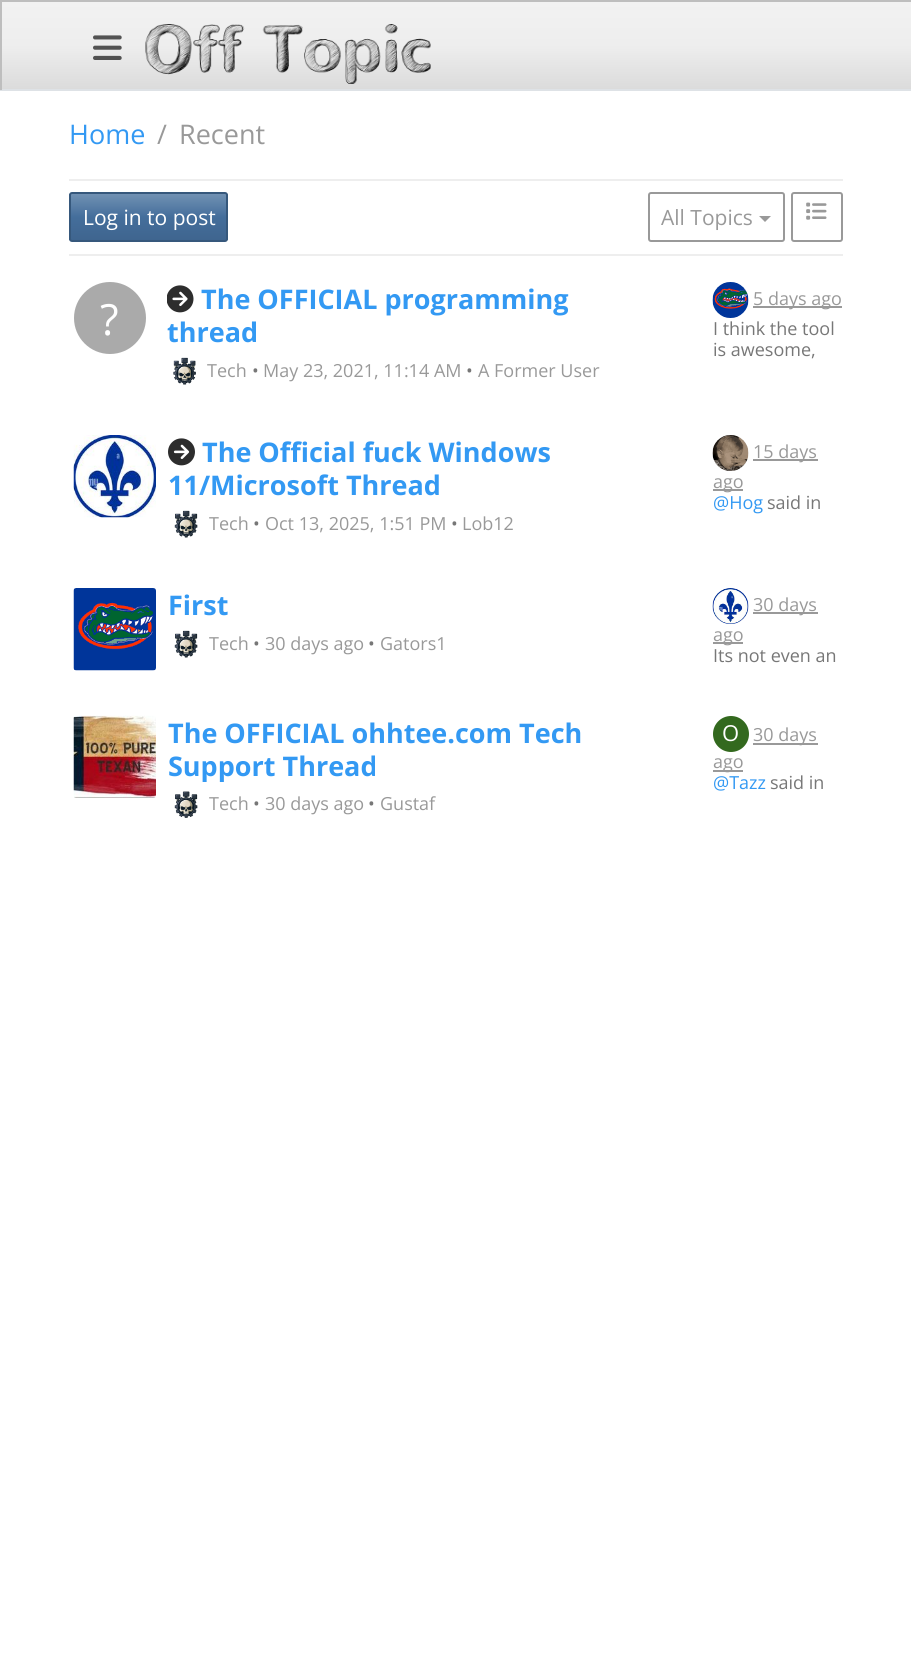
#include <cairo/cairo.h>
#include <math.h>
#include <stddef.h>

static cairo_t *cr;

static void use_color(int r, int g, int b) {
  cairo_set_source_rgb(cr, r / 255.0, g / 255.0, b / 255.0);
}

static void text(double x, double y, const char *s, const char *family, double size, int italic, int bold, int r, int g, int b) {
  cairo_select_font_face(cr, family, italic ? CAIRO_FONT_SLANT_ITALIC : CAIRO_FONT_SLANT_NORMAL,
    bold ? CAIRO_FONT_WEIGHT_BOLD : CAIRO_FONT_WEIGHT_NORMAL);
  cairo_set_font_size(cr, size);
  use_color(r, g, b);
  cairo_move_to(cr, x, y);
  cairo_show_text(cr, s);
}

static void box(double x, double y, double w, double h, int r, int g, int b) {
  use_color(r, g, b);
  cairo_rectangle(cr, x, y, w, h);
  cairo_fill(cr);
}

static void round_rect(double x, double y, double w, double h, double r) {
  cairo_new_sub_path(cr);
  cairo_arc(cr, x + w - r, y + h - r, r, 0, M_PI / 2);
  cairo_arc(cr, x + r, y + h - r, r, M_PI / 2, M_PI);
  cairo_arc(cr, x + r, y + r, r, M_PI, 1.5 * M_PI);
  cairo_arc(cr, x + w - r, y + r, r, 1.5 * M_PI, 2 * M_PI);
  cairo_close_path(cr);
}

static void picture(const char *path, double x, double y, double w, double h) {
  cairo_surface_t *image = cairo_image_surface_create_from_png(path);
  cairo_save(cr);
  cairo_set_source_surface(cr, image, x, y);
  cairo_rectangle(cr, x, y, w, h);
  cairo_fill(cr);
  cairo_restore(cr);
  cairo_surface_destroy(image);
}

static void draw(void) {
  cairo_pattern_t *gradient;
  use_color(255, 255, 255);
  cairo_paint(cr);
  gradient = cairo_pattern_create_linear(456, 1.5, 456, 89);
  cairo_pattern_add_color_stop_rgba(gradient, 0, 0.949, 0.949, 0.949, 1);
  cairo_pattern_add_color_stop_rgba(gradient, 0.5, 0.933, 0.933, 0.933, 1);
  cairo_pattern_add_color_stop_rgba(gradient, 1, 0.859, 0.859, 0.859, 1);
  cairo_set_source(cr, gradient);
  cairo_pattern_destroy(gradient);
  cairo_rectangle(cr, 2, 2, 909, 87);
  cairo_fill(cr);
  box(0, 0, 911, 2, 190, 190, 190);
  box(0, 89, 911, 2, 222, 226, 230);
  box(0, 0, 2, 90, 190, 190, 190);
  picture("img_01.png", 93, 35, 29, 25);
  picture("img_02.png", 145, 24, 286, 60);
  box(69, 179, 774, 2, 238, 238, 238);
  box(69, 254, 774, 2, 238, 238, 238);
  cairo_save(cr);
  round_rect(69, 192, 159, 50, 3);
  cairo_clip(cr);
  gradient = cairo_pattern_create_linear(149, 194, 149, 240);
  cairo_pattern_add_color_stop_rgba(gradient, 0, 0.443, 0.569, 0.702, 1);
  cairo_pattern_add_color_stop_rgba(gradient, 0.5, 0.267, 0.431, 0.608, 1);
  cairo_pattern_add_color_stop_rgba(gradient, 1, 0.247, 0.396, 0.561, 1);
  cairo_set_source(cr, gradient);
  cairo_pattern_destroy(gradient);
  cairo_rectangle(cr, 69, 194, 159, 46);
  cairo_fill(cr);
  cairo_restore(cr);
  round_rect(70, 193, 157, 48, 2);
  use_color(54, 88, 124);
  cairo_stroke(cr);
  round_rect(649, 193, 135, 48, 2);
  use_color(153, 153, 153);
  cairo_stroke(cr);
  cairo_new_path(cr);
  cairo_move_to(cr, 759, 216);
  cairo_line_to(cr, 771, 216);
  cairo_line_to(cr, 765, 222);
  cairo_close_path(cr);
  cairo_fill(cr);
  round_rect(792, 193, 50, 48, 2);
  cairo_stroke(cr);
  picture("img_03.png", 806, 202, 21, 18);
  use_color(170, 170, 170);
  cairo_arc(cr, 110, 318, 36, 0, 2 * M_PI);
  cairo_fill(cr);
  picture("img_04.png", 167, 285, 27, 28);
  picture("img_05.png", 173, 357, 23, 28);
  picture("img_06.png", 712, 282, 37, 36);
  box(753, 306, 89, 2, 153, 153, 153);
  picture("img_07.png", 73, 435, 83, 83);
  picture("img_08.png", 168, 438, 27, 28);
  picture("img_09.png", 174, 510, 24, 28);
  picture("img_10.png", 712, 435, 37, 36);
  box(753, 459, 65, 2, 153, 153, 153);
  box(713, 489, 30, 2, 153, 153, 153);
  picture("img_11.png", 73, 588, 83, 83);
  picture("img_12.png", 174, 630, 24, 28);
  picture("img_13.png", 712, 588, 37, 36);
  box(753, 612, 65, 2, 153, 153, 153);
  box(713, 642, 30, 2, 153, 153, 153);
  picture("img_14.png", 73, 715, 83, 83);
  picture("img_15.png", 174, 791, 24, 27);
  use_color(51, 105, 30);
  cairo_arc(cr, 731, 734, 18, 0, 2 * M_PI);
  cairo_fill(cr);
  box(753, 743, 65, 2, 153, 153, 153);
  box(713, 770, 30, 2, 153, 153, 153);
  text(69, 144, "Home", "Open Sans", 27, 0, 0, 51, 153, 243);
  text(157, 144, "/", "Open Sans", 27, 0, 0, 153, 153, 153);
  text(179, 144, "Recent", "Open Sans", 27, 0, 0, 153, 153, 153);
  text(83, 225, "Log in to post", "Open Sans", 21, 0, 0, 255, 255, 255);
  text(661, 225, "All Topics", "Open Sans", 21, 0, 0, 153, 153, 153);
  text(100, 335, "?", "Open Sans", 43, 0, 0, 255, 255, 255);
  text(201, 309, "The OFFICIAL programming", "Open Sans", 27, 0, 1, 51, 153, 243);
  text(167, 342, "thread", "Open Sans", 27, 0, 1, 51, 153, 243);
  text(207, 377, "Tech", "Open Sans", 18, 0, 0, 153, 153, 153);
  text(252, 377, "•", "Open Sans", 18, 0, 0, 119, 119, 119);
  text(263, 377, "May 23, 2021, 11:14 AM", "Open Sans", 18, 0, 0, 153, 153, 153);
  text(466, 377, "•", "Open Sans", 18, 0, 0, 119, 119, 119);
  text(478, 377, "A Former User", "Open Sans", 18, 0, 0, 153, 153, 153);
  text(753, 305, "5 days ago", "Open Sans", 18, 0, 0, 153, 153, 153);
  text(713, 335, "I think the tool", "Open Sans", 18, 0, 0, 119, 119, 119);
  text(713, 356, "is awesome,", "Open Sans", 18, 0, 0, 119, 119, 119);
  text(202, 462, "The Official fuck Windows", "Open Sans", 27, 0, 1, 51, 153, 243);
  text(168, 495, "11/Microsoft Thread", "Open Sans", 27, 0, 1, 51, 153, 243);
  text(209, 530, "Tech", "Open Sans", 18, 0, 0, 153, 153, 153);
  text(253, 530, "•", "Open Sans", 18, 0, 0, 119, 119, 119);
  text(265, 530, "Oct 13, 2025, 1:51 PM", "Open Sans", 18, 0, 0, 153, 153, 153);
  text(451, 530, "•", "Open Sans", 18, 0, 0, 119, 119, 119);
  text(462, 530, "Lob12", "Open Sans", 18, 0, 0, 153, 153, 153);
  text(753, 458, "15 days", "Open Sans", 18, 0, 0, 153, 153, 153);
  text(713, 488, "ago", "Open Sans", 18, 0, 0, 153, 153, 153);
  text(713, 509, "@Hog", "Open Sans", 18, 0, 0, 51, 153, 243);
  text(767, 509, "said in", "Open Sans", 18, 0, 0, 119, 119, 119);
  text(168, 615, "First", "Open Sans", 27, 0, 1, 51, 153, 243);
  text(209, 650, "Tech", "Open Sans", 18, 0, 0, 153, 153, 153);
  text(253, 650, "•", "Open Sans", 18, 0, 0, 119, 119, 119);
  text(265, 650, "30 days ago", "Open Sans", 18, 0, 0, 153, 153, 153);
  text(368, 650, "•", "Open Sans", 18, 0, 0, 119, 119, 119);
  text(380, 650, "Gators1", "Open Sans", 18, 0, 0, 153, 153, 153);
  text(753, 611, "30 days", "Open Sans", 18, 0, 0, 153, 153, 153);
  text(713, 641, "ago", "Open Sans", 18, 0, 0, 153, 153, 153);
  text(713, 662, "Its not even an", "Open Sans", 18, 0, 0, 119, 119, 119);
  text(168, 743, "The OFFICIAL ohhtee.com Tech", "Open Sans", 27, 0, 1, 51, 153, 243);
  cairo_save(cr);
  cairo_rectangle(cr, 168, 716, 468, 66);
  cairo_clip(cr);
  text(168, 776, "Support Thread", "Open Sans", 27, 0, 1, 51, 153, 243);
  cairo_restore(cr);
  text(209, 810, "Tech", "Open Sans", 18, 0, 0, 153, 153, 153);
  text(253, 810, "•", "Open Sans", 18, 0, 0, 119, 119, 119);
  text(265, 810, "30 days ago", "Open Sans", 18, 0, 0, 153, 153, 153);
  text(368, 810, "•", "Open Sans", 18, 0, 0, 119, 119, 119);
  text(380, 810, "Gustaf", "Open Sans", 18, 0, 0, 153, 153, 153);
  text(722, 741, "O", "Open Sans", 22, 0, 0, 255, 255, 255);
  text(753, 741, "30 days", "Open Sans", 18, 0, 0, 153, 153, 153);
  text(713, 768, "ago", "Open Sans", 18, 0, 0, 153, 153, 153);
  text(713, 789, "@Tazz", "Open Sans", 18, 0, 0, 51, 153, 243);
  text(770, 789, "said in", "Open Sans", 18, 0, 0, 119, 119, 119);
}

int main(void) {
  cairo_surface_t *surface = cairo_image_surface_create(CAIRO_FORMAT_RGB24, 911, 1672);
  cr = cairo_create(surface);
  cairo_font_options_t *options = cairo_font_options_create();
  cairo_font_options_set_hint_metrics(options, CAIRO_HINT_METRICS_OFF);
  cairo_font_options_set_hint_style(options, CAIRO_HINT_STYLE_NONE);
  cairo_set_font_options(cr, options);
  cairo_set_miter_limit(cr, 4);
  draw();
  cairo_surface_write_to_png(surface, "out.png");
  cairo_font_options_destroy(options);
  cairo_destroy(cr);
  cairo_surface_destroy(surface);
  return 0;
}
